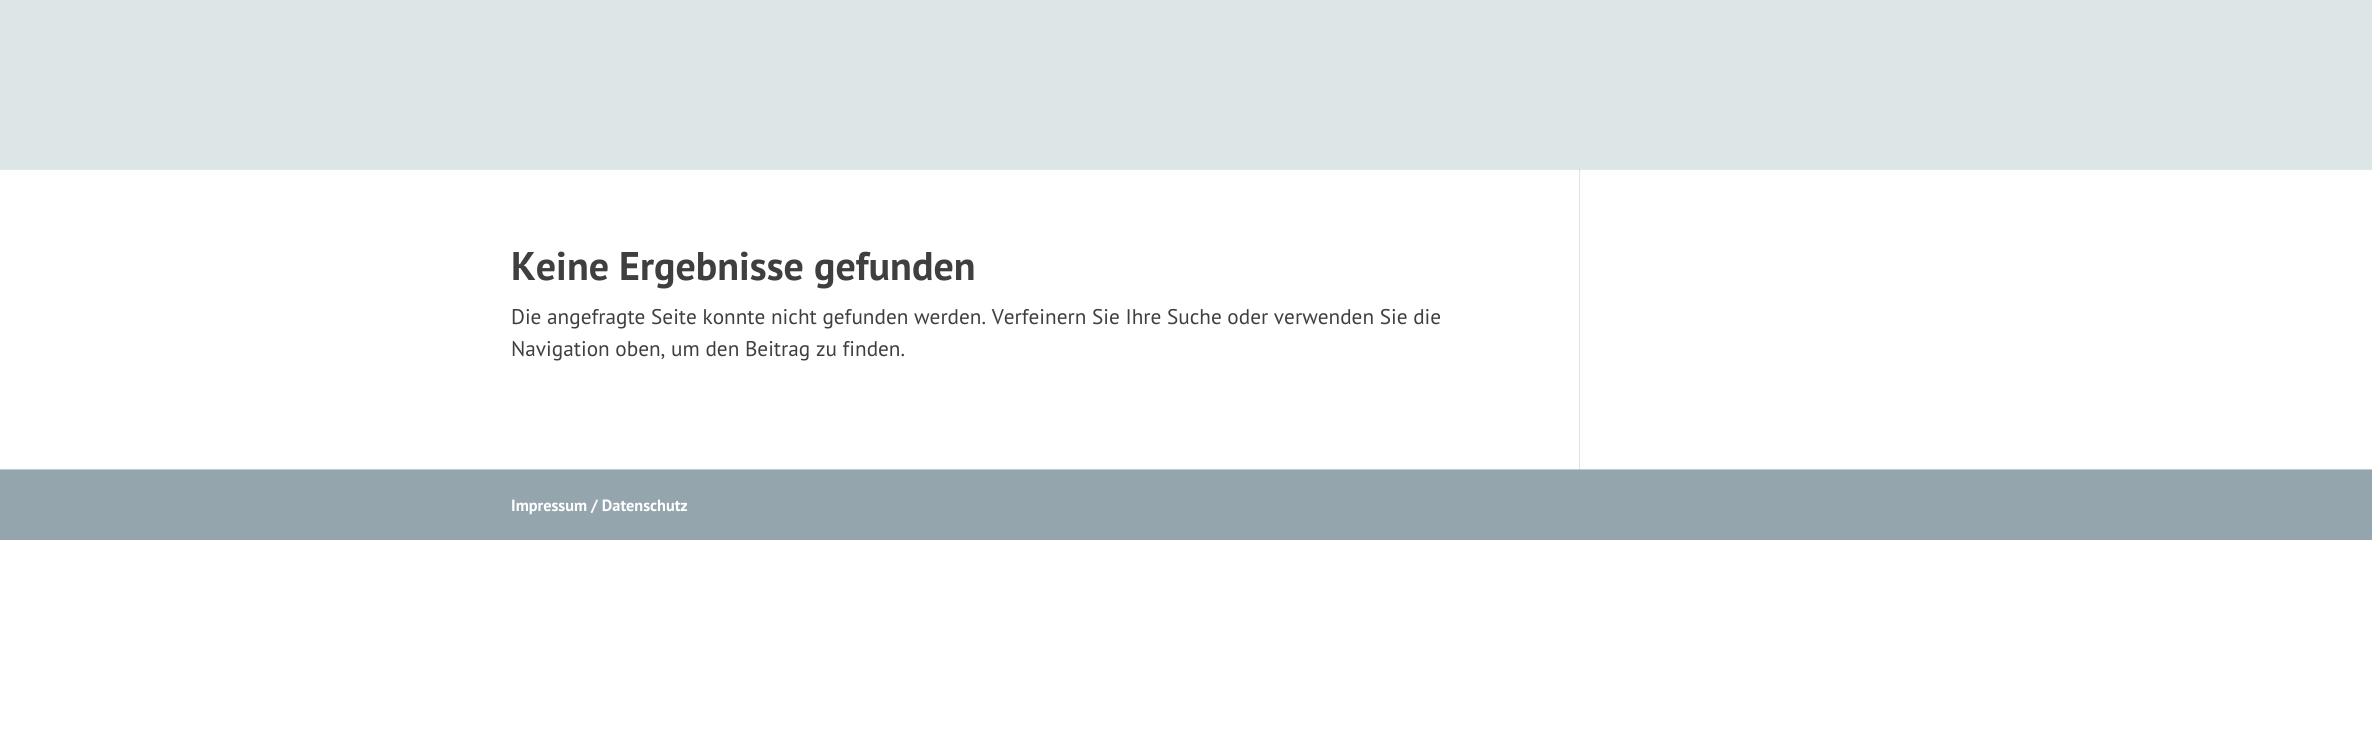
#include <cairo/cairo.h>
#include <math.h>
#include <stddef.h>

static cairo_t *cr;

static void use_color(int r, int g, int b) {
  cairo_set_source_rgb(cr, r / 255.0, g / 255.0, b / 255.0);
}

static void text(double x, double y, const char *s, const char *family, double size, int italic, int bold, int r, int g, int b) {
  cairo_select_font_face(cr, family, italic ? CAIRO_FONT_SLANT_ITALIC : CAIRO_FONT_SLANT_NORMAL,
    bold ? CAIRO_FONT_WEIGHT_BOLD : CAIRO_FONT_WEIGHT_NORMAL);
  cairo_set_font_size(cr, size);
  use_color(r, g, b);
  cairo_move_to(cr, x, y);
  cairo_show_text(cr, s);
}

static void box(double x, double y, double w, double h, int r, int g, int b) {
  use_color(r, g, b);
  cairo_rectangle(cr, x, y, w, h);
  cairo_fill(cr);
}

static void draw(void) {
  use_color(255, 255, 255);
  cairo_paint(cr);
  box(1579, 169, 1, 300, 226, 226, 226);
  cairo_set_source_rgba(cr, 0, 0, 0, 0.1);
  cairo_new_path(cr);
  cairo_move_to(cr, 0, 169);
  cairo_line_to(cr, 0, 170);
  cairo_line_to(cr, 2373, 170);
  cairo_line_to(cr, 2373, 1);
  cairo_line_to(cr, 2372, 1);
  cairo_line_to(cr, 2372, 169);
  cairo_close_path(cr);
  cairo_fill(cr);
  box(0, 0, 2372, 169, 220, 230, 230);
  box(0, 469, 2372, 1, 186, 203, 210);
  box(0, 470, 2372, 70, 148, 165, 173);
  text(511, 280, "Keine Ergebnisse gefunden", "PT Sans", 40, 0, 1, 63, 63, 63);
  text(511, 324, "Die angefragte Seite konnte nicht gefunden werden. Verfeinern Sie Ihre Suche oder verwenden Sie die", "PT Sans", 21.25, 0, 0, 63, 63, 63);
  text(511, 356, "Navigation oben, um den Beitrag zu finden.", "PT Sans", 21.25, 0, 0, 63, 63, 63);
  text(511, 511, "Impressum / Datenschutz", "PT Sans", 16.25, 0, 1, 255, 255, 255);
}

int main(void) {
  cairo_surface_t *surface = cairo_image_surface_create(CAIRO_FORMAT_RGB24, 2372, 742);
  cr = cairo_create(surface);
  cairo_font_options_t *options = cairo_font_options_create();
  cairo_font_options_set_hint_metrics(options, CAIRO_HINT_METRICS_OFF);
  cairo_font_options_set_hint_style(options, CAIRO_HINT_STYLE_NONE);
  cairo_set_font_options(cr, options);
  cairo_set_miter_limit(cr, 4);
  draw();
  cairo_surface_write_to_png(surface, "out.png");
  cairo_font_options_destroy(options);
  cairo_destroy(cr);
  cairo_surface_destroy(surface);
  return 0;
}
